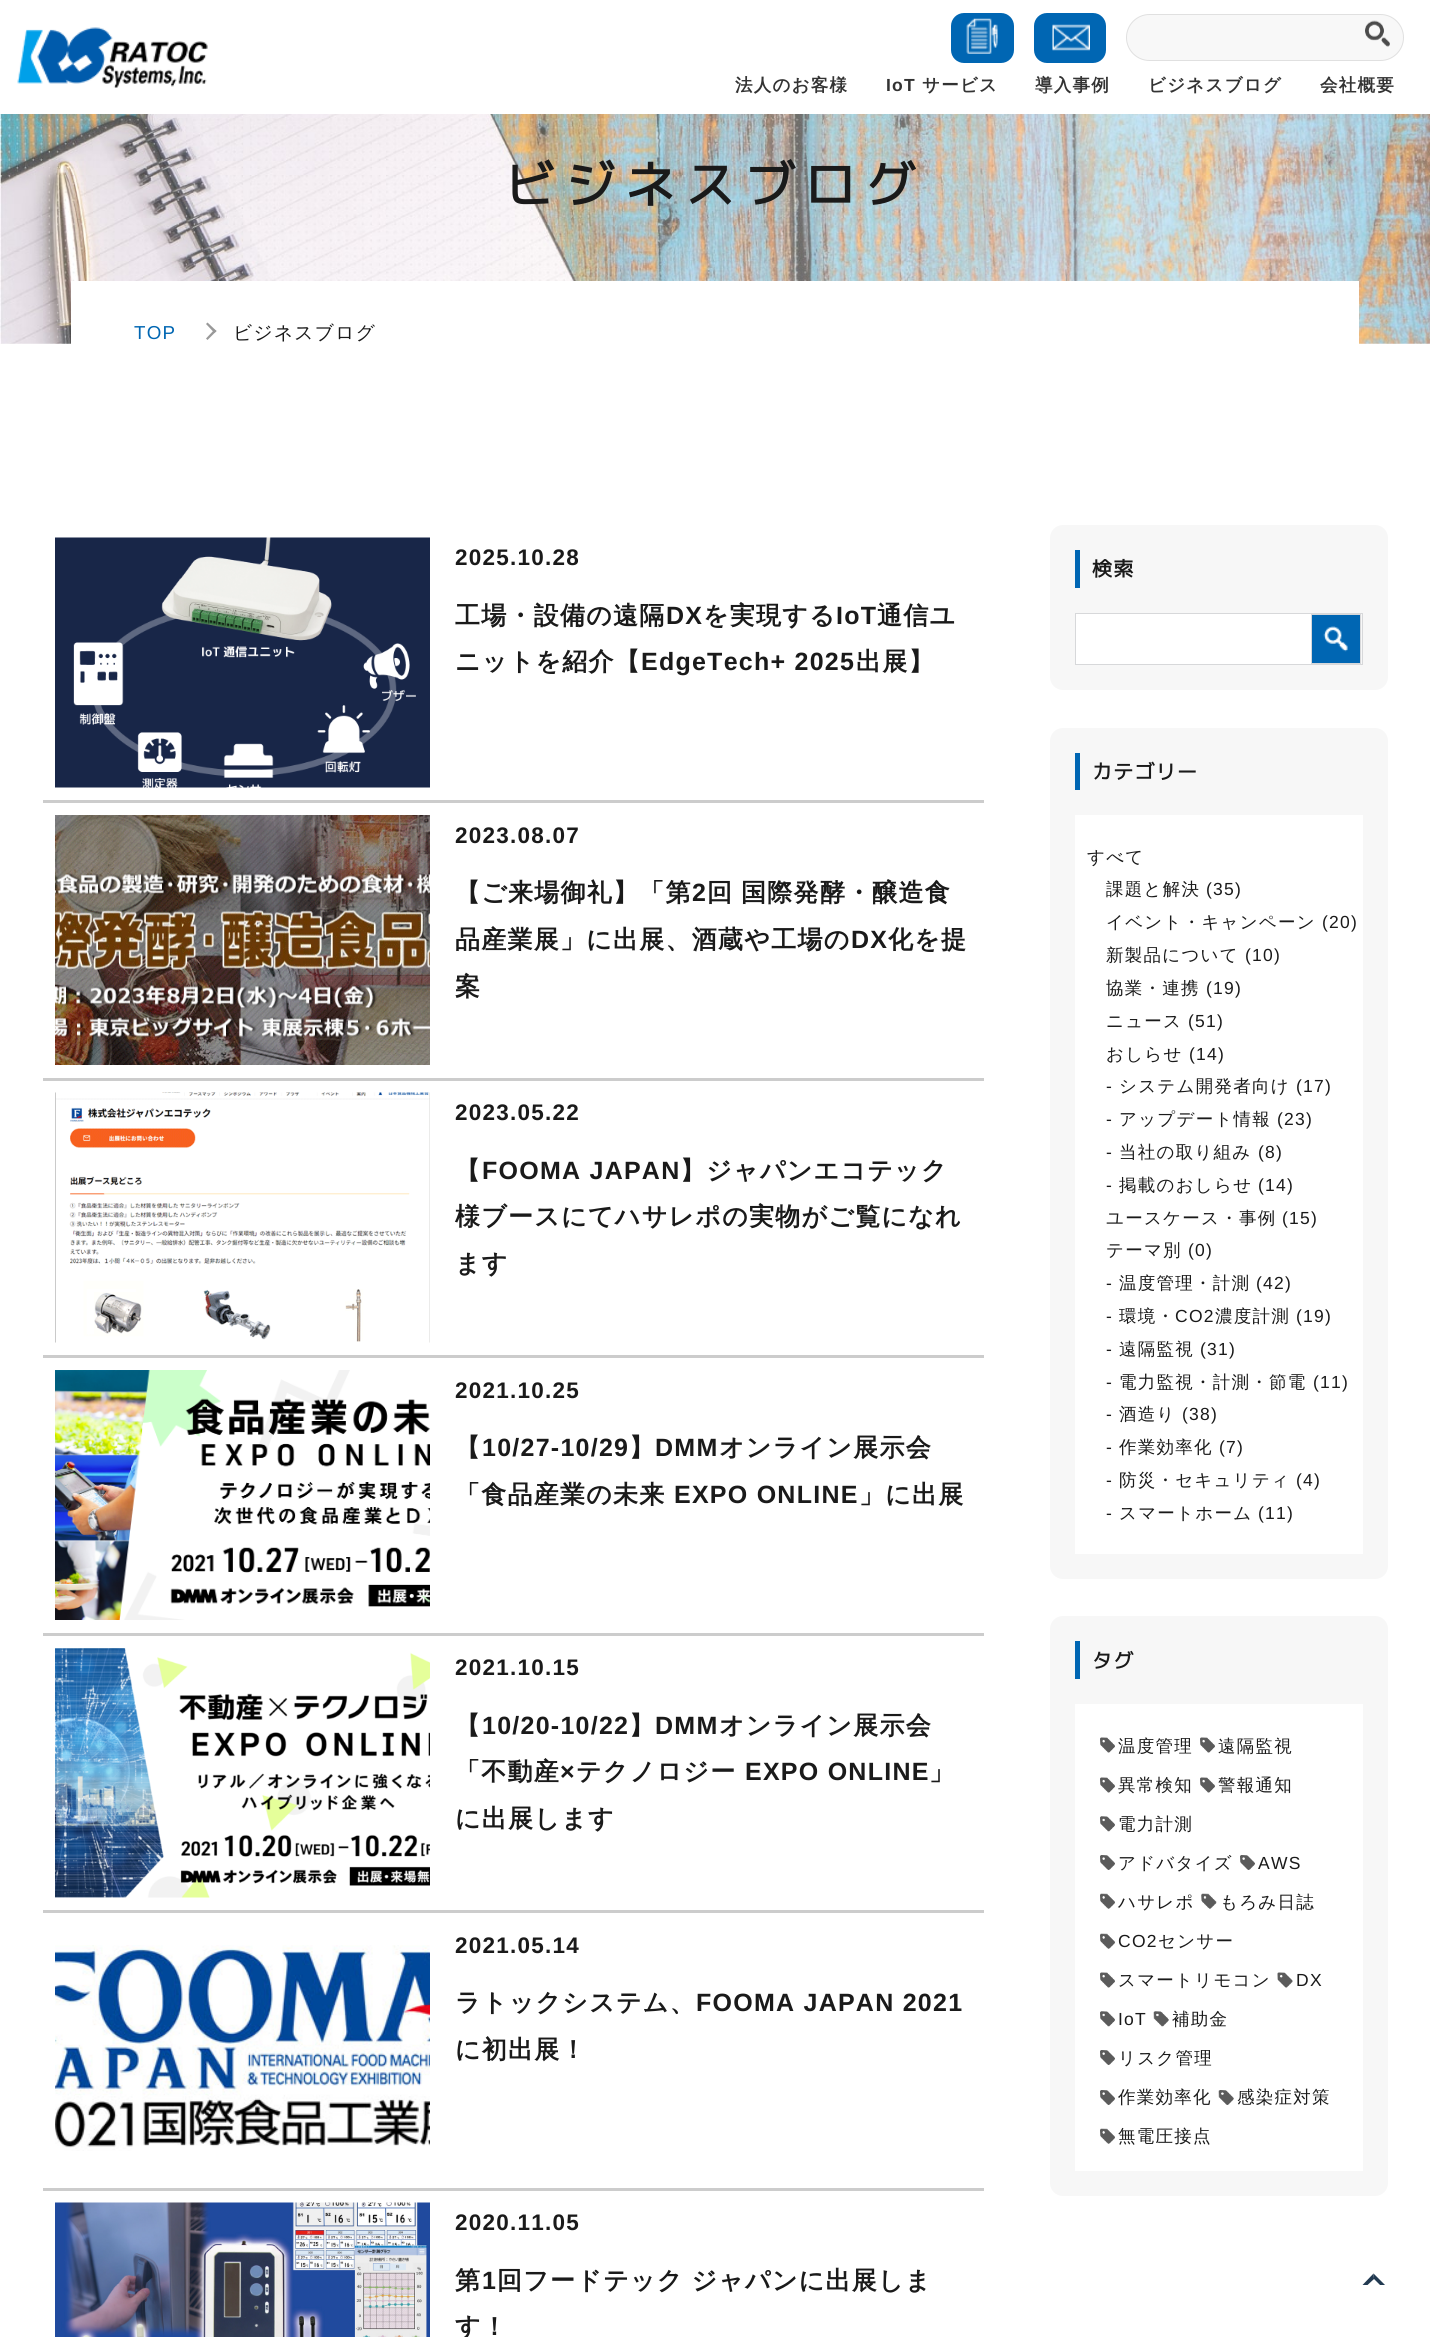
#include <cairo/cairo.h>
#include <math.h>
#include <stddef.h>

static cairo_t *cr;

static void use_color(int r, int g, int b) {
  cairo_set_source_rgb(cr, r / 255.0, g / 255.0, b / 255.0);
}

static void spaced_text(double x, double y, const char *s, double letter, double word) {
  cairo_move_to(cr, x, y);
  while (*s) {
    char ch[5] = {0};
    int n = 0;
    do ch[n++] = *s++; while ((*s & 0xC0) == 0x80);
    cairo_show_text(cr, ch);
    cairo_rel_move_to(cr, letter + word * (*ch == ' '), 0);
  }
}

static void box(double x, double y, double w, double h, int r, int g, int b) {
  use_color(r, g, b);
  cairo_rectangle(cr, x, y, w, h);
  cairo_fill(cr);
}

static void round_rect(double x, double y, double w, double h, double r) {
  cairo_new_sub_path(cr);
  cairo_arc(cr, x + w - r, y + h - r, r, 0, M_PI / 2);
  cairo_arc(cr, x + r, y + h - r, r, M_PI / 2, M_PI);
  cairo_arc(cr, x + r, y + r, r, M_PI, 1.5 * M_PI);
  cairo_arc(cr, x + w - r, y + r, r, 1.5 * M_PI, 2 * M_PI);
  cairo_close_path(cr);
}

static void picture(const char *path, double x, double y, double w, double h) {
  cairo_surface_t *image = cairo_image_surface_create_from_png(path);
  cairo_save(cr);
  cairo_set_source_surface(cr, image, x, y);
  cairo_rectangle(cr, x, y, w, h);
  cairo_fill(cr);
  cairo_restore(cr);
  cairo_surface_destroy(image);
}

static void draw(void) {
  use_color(255, 255, 255);
  cairo_paint(cr);
  picture("img_01.png", 17, 27, 191, 61);
  use_color(0, 102, 179);
  round_rect(951, 13, 63, 50, 13);
  cairo_fill(cr);
  picture("img_02.png", 966, 18, 32, 36);
  round_rect(1034, 13, 72, 50, 13);
  cairo_fill(cr);
  picture("img_03.png", 1052, 24, 38, 27);
  use_color(248, 248, 248);
  round_rect(1126.5, 14.5, 277, 46, 23);
  cairo_fill_preserve(cr);
  use_color(224, 224, 224);
  cairo_set_line_width(cr, 1);
  cairo_stroke(cr);
  picture("img_04.png", 1365, 20, 25, 27);
  picture("img_05.png", 0, 114, 1430, 230);
  box(71, 281, 1288, 63, 255, 255, 255);
  use_color(153, 153, 153);
  cairo_new_path(cr);
  cairo_move_to(cr, 207.5, 322.5);
  cairo_line_to(cr, 216.5, 331);
  cairo_line_to(cr, 214.5, 333);
  cairo_line_to(cr, 206, 324);
  cairo_close_path(cr);
  cairo_fill(cr);
  cairo_new_path(cr);
  cairo_move_to(cr, 214.5, 329.5);
  cairo_line_to(cr, 216.5, 331);
  cairo_line_to(cr, 207.5, 340);
  cairo_line_to(cr, 206, 338.5);
  cairo_close_path(cr);
  cairo_fill(cr);
  box(43, 800, 941, 3, 204, 204, 204);
  picture("img_06.png", 55, 537, 375, 251);
  box(43, 1078, 941, 3, 204, 204, 204);
  picture("img_07.png", 55, 815, 375, 250);
  box(43, 1355, 941, 3, 204, 204, 204);
  picture("img_08.png", 55, 1092, 375, 251);
  box(43, 1633, 941, 3, 204, 204, 204);
  picture("img_09.png", 55, 1370, 375, 250);
  box(43, 1910, 941, 3, 204, 204, 204);
  picture("img_10.png", 55, 1648, 375, 250);
  box(43, 2188, 941, 3, 204, 204, 204);
  picture("img_11.png", 55, 1945, 375, 206);
  picture("img_12.png", 55, 2202, 375, 135);
  use_color(247, 247, 247);
  round_rect(1050, 525, 338, 165, 13);
  cairo_fill(cr);
  box(1075, 550, 5, 38, 0, 102, 179);
  cairo_rectangle(cr, 1075.5, 613.5, 287, 51);
  use_color(215, 216, 218);
  cairo_stroke(cr);
  box(1076, 614, 235, 50, 255, 255, 255);
  box(1312, 615, 48, 48, 0, 102, 179);
  picture("img_13.png", 1323, 626, 25, 26);
  cairo_rectangle(cr, 1311.5, 614.5, 49, 49);
  use_color(215, 216, 218);
  cairo_stroke(cr);
  use_color(247, 247, 247);
  round_rect(1050, 728, 338, 851, 13);
  cairo_fill(cr);
  box(1075, 753, 5, 37, 0, 102, 179);
  box(1075, 815, 288, 739, 255, 255, 255);
  use_color(247, 247, 247);
  round_rect(1050, 1616, 338, 580, 13);
  cairo_fill(cr);
  box(1075, 1641, 5, 38, 0, 102, 179);
  box(1075, 1704, 288, 467, 255, 255, 255);
  picture("img_14.png", 1100, 1737, 15, 16);
  picture("img_15.png", 1200, 1737, 15, 16);
  picture("img_14.png", 1100, 1777, 15, 16);
  picture("img_15.png", 1200, 1777, 15, 16);
  picture("img_16.png", 1100, 1816, 15, 16);
  picture("img_17.png", 1100, 1855, 15, 15);
  picture("img_18.png", 1240, 1855, 15, 15);
  picture("img_19.png", 1100, 1893, 15, 16);
  picture("img_20.png", 1201, 1893, 16, 16);
  picture("img_19.png", 1100, 1933, 15, 16);
  picture("img_14.png", 1100, 1972, 15, 16);
  picture("img_21.png", 1277, 1972, 16, 16);
  picture("img_16.png", 1100, 2011, 15, 16);
  picture("img_22.png", 1153, 2011, 16, 16);
  picture("img_23.png", 1100, 2050, 15, 15);
  picture("img_24.png", 1100, 2090, 15, 15);
  picture("img_25.png", 1218, 2090, 16, 15);
  picture("img_19.png", 1100, 2128, 15, 16);
  use_color(34, 58, 81);
  cairo_new_path(cr);
  cairo_move_to(cr, 1373.5, 2273.5);
  cairo_line_to(cr, 1385, 2285);
  cairo_line_to(cr, 1380, 2285);
  cairo_line_to(cr, 1374, 2279);
  cairo_close_path(cr);
  cairo_fill(cr);
  cairo_new_path(cr);
  cairo_move_to(cr, 1362.5, 2285);
  cairo_line_to(cr, 1373.5, 2273.5);
  cairo_line_to(cr, 1374, 2279);
  cairo_line_to(cr, 1367.5, 2285);
  cairo_close_path(cr);
  cairo_fill(cr);
  cairo_select_font_face(cr, "WenQuanYi Zen Hei", CAIRO_FONT_SLANT_NORMAL, CAIRO_FONT_WEIGHT_BOLD);
  cairo_set_font_size(cr, 17.5);
  use_color(51, 51, 51);
  spaced_text(735, 91, "法人のお客様", 1.25, 0);
  cairo_select_font_face(cr, "Liberation Sans", CAIRO_FONT_SLANT_NORMAL, CAIRO_FONT_WEIGHT_BOLD);
  spaced_text(886, 91, "IoT", 1.25, 0);
  cairo_select_font_face(cr, "WenQuanYi Zen Hei", CAIRO_FONT_SLANT_NORMAL, CAIRO_FONT_WEIGHT_BOLD);
  spaced_text(922, 91, "サービス", 1.25, 0);
  spaced_text(1035, 91, "導入事例", 1.25, 0);
  spaced_text(1148, 91, "ビジネスブログ", 1.25, 0);
  spaced_text(1320, 91, "会社概要", 1.25, 0);
  cairo_select_font_face(cr, "M PLUS 1p", CAIRO_FONT_SLANT_NORMAL, CAIRO_FONT_WEIGHT_BOLD);
  cairo_set_font_size(cr, 50);
  use_color(26, 26, 26);
  spaced_text(505, 203, "ビジネスブログ", 10, 0);
  cairo_select_font_face(cr, "Liberation Sans", CAIRO_FONT_SLANT_NORMAL, CAIRO_FONT_WEIGHT_NORMAL);
  cairo_set_font_size(cr, 18.75);
  use_color(0, 102, 178);
  spaced_text(134, 339, "TOP", 1.25, 0);
  cairo_select_font_face(cr, "WenQuanYi Zen Hei Medium", CAIRO_FONT_SLANT_NORMAL, CAIRO_FONT_WEIGHT_NORMAL);
  use_color(26, 26, 26);
  spaced_text(233, 339, "ビジネスブログ", 1.25, 0);
  cairo_select_font_face(cr, "Liberation Sans", CAIRO_FONT_SLANT_NORMAL, CAIRO_FONT_WEIGHT_BOLD);
  cairo_set_font_size(cr, 22.5);
  spaced_text(455, 565, "2025.10.28", 1.25, 0);
  cairo_select_font_face(cr, "WenQuanYi Zen Hei", CAIRO_FONT_SLANT_NORMAL, CAIRO_FONT_WEIGHT_BOLD);
  cairo_set_font_size(cr, 25);
  spaced_text(455, 624, "工場・設備の遠隔", 1.25, 0);
  cairo_select_font_face(cr, "Liberation Sans", CAIRO_FONT_SLANT_NORMAL, CAIRO_FONT_WEIGHT_BOLD);
  spaced_text(666, 624, "DX", 1.25, 0);
  cairo_select_font_face(cr, "WenQuanYi Zen Hei", CAIRO_FONT_SLANT_NORMAL, CAIRO_FONT_WEIGHT_BOLD);
  spaced_text(703, 624, "を実現する", 1.25, 0);
  cairo_select_font_face(cr, "Liberation Sans", CAIRO_FONT_SLANT_NORMAL, CAIRO_FONT_WEIGHT_BOLD);
  spaced_text(836, 624, "IoT", 1.25, 0);
  cairo_select_font_face(cr, "WenQuanYi Zen Hei", CAIRO_FONT_SLANT_NORMAL, CAIRO_FONT_WEIGHT_BOLD);
  spaced_text(877, 624, "通信ユ", 1.25, 0);
  spaced_text(455, 670, "ニットを紹介【", 1.25, 0);
  cairo_select_font_face(cr, "Liberation Sans", CAIRO_FONT_SLANT_NORMAL, CAIRO_FONT_WEIGHT_BOLD);
  spaced_text(641, 670, "EdgeTech+ 2025", 1.25, 0);
  cairo_select_font_face(cr, "WenQuanYi Zen Hei", CAIRO_FONT_SLANT_NORMAL, CAIRO_FONT_WEIGHT_BOLD);
  spaced_text(856, 670, "出展】", 1.25, 0);
  cairo_select_font_face(cr, "Liberation Sans", CAIRO_FONT_SLANT_NORMAL, CAIRO_FONT_WEIGHT_BOLD);
  cairo_set_font_size(cr, 22.5);
  spaced_text(455, 843, "2023.08.07", 1.25, 0);
  cairo_select_font_face(cr, "WenQuanYi Zen Hei", CAIRO_FONT_SLANT_NORMAL, CAIRO_FONT_WEIGHT_BOLD);
  cairo_set_font_size(cr, 25);
  spaced_text(455, 901, "【ご来場御礼】「第", 1.25, 0);
  cairo_select_font_face(cr, "Liberation Sans", CAIRO_FONT_SLANT_NORMAL, CAIRO_FONT_WEIGHT_BOLD);
  spaced_text(692, 901, "2", 1.25, 0);
  cairo_select_font_face(cr, "WenQuanYi Zen Hei", CAIRO_FONT_SLANT_NORMAL, CAIRO_FONT_WEIGHT_BOLD);
  spaced_text(707, 901, "回 国際発酵・醸造食", 1.25, -1);
  spaced_text(455, 948, "品産業展」に出展、酒蔵や工場の", 1.25, 0);
  cairo_select_font_face(cr, "Liberation Sans", CAIRO_FONT_SLANT_NORMAL, CAIRO_FONT_WEIGHT_BOLD);
  spaced_text(851, 948, "DX", 1.25, 0);
  cairo_select_font_face(cr, "WenQuanYi Zen Hei", CAIRO_FONT_SLANT_NORMAL, CAIRO_FONT_WEIGHT_BOLD);
  spaced_text(888, 948, "化を提", 1.25, 0);
  spaced_text(455, 995, "案", 1.25, 0);
  cairo_select_font_face(cr, "Liberation Sans", CAIRO_FONT_SLANT_NORMAL, CAIRO_FONT_WEIGHT_BOLD);
  cairo_set_font_size(cr, 22.5);
  spaced_text(455, 1120, "2023.05.22", 1.25, 0);
  cairo_select_font_face(cr, "WenQuanYi Zen Hei", CAIRO_FONT_SLANT_NORMAL, CAIRO_FONT_WEIGHT_BOLD);
  cairo_set_font_size(cr, 25);
  spaced_text(455, 1179, "【", 1.25, 0);
  cairo_select_font_face(cr, "Liberation Sans", CAIRO_FONT_SLANT_NORMAL, CAIRO_FONT_WEIGHT_BOLD);
  spaced_text(482, 1179, "FOOMA JAPAN", 1.25, 0);
  cairo_select_font_face(cr, "WenQuanYi Zen Hei", CAIRO_FONT_SLANT_NORMAL, CAIRO_FONT_WEIGHT_BOLD);
  spaced_text(680, 1179, "】ジャパンエコテック", 1.25, 0);
  spaced_text(455, 1225, "様ブースにてハサレポの実物がご覧になれ", 1.25, 0);
  spaced_text(455, 1272, "ます", 1.25, 0);
  cairo_select_font_face(cr, "Liberation Sans", CAIRO_FONT_SLANT_NORMAL, CAIRO_FONT_WEIGHT_BOLD);
  cairo_set_font_size(cr, 22.5);
  spaced_text(455, 1398, "2021.10.25", 1.25, 0);
  cairo_select_font_face(cr, "WenQuanYi Zen Hei", CAIRO_FONT_SLANT_NORMAL, CAIRO_FONT_WEIGHT_BOLD);
  cairo_set_font_size(cr, 25);
  spaced_text(455, 1456, "【", 1.25, 0);
  cairo_select_font_face(cr, "Liberation Sans", CAIRO_FONT_SLANT_NORMAL, CAIRO_FONT_WEIGHT_BOLD);
  spaced_text(482, 1456, "10/27-10/29", 1.25, 0);
  cairo_select_font_face(cr, "WenQuanYi Zen Hei", CAIRO_FONT_SLANT_NORMAL, CAIRO_FONT_WEIGHT_BOLD);
  spaced_text(629, 1456, "】", 1.25, 0);
  cairo_select_font_face(cr, "Liberation Sans", CAIRO_FONT_SLANT_NORMAL, CAIRO_FONT_WEIGHT_BOLD);
  spaced_text(655, 1456, "DMM", 1.25, 0);
  cairo_select_font_face(cr, "WenQuanYi Zen Hei", CAIRO_FONT_SLANT_NORMAL, CAIRO_FONT_WEIGHT_BOLD);
  spaced_text(719, 1456, "オンライン展示会", 1.25, 0);
  spaced_text(455, 1503, "「食品産業の未来", 1.25, 0);
  cairo_select_font_face(cr, "Liberation Sans", CAIRO_FONT_SLANT_NORMAL, CAIRO_FONT_WEIGHT_BOLD);
  spaced_text(674, 1503, "EXPO ONLINE", 1.25, 0);
  cairo_select_font_face(cr, "WenQuanYi Zen Hei", CAIRO_FONT_SLANT_NORMAL, CAIRO_FONT_WEIGHT_BOLD);
  spaced_text(859, 1503, "」に出展", 1.25, 0);
  cairo_select_font_face(cr, "Liberation Sans", CAIRO_FONT_SLANT_NORMAL, CAIRO_FONT_WEIGHT_BOLD);
  cairo_set_font_size(cr, 22.5);
  spaced_text(455, 1675, "2021.10.15", 1.25, 0);
  cairo_select_font_face(cr, "WenQuanYi Zen Hei", CAIRO_FONT_SLANT_NORMAL, CAIRO_FONT_WEIGHT_BOLD);
  cairo_set_font_size(cr, 25);
  spaced_text(455, 1734, "【", 1.25, 0);
  cairo_select_font_face(cr, "Liberation Sans", CAIRO_FONT_SLANT_NORMAL, CAIRO_FONT_WEIGHT_BOLD);
  spaced_text(482, 1734, "10/20-10/22", 1.25, 0);
  cairo_select_font_face(cr, "WenQuanYi Zen Hei", CAIRO_FONT_SLANT_NORMAL, CAIRO_FONT_WEIGHT_BOLD);
  spaced_text(629, 1734, "】", 1.25, 0);
  cairo_select_font_face(cr, "Liberation Sans", CAIRO_FONT_SLANT_NORMAL, CAIRO_FONT_WEIGHT_BOLD);
  spaced_text(655, 1734, "DMM", 1.25, 0);
  cairo_select_font_face(cr, "WenQuanYi Zen Hei", CAIRO_FONT_SLANT_NORMAL, CAIRO_FONT_WEIGHT_BOLD);
  spaced_text(719, 1734, "オンライン展示会", 1.25, 0);
  spaced_text(455, 1780, "「不動産", 1.25, 0);
  cairo_select_font_face(cr, "Liberation Sans", CAIRO_FONT_SLANT_NORMAL, CAIRO_FONT_WEIGHT_BOLD);
  spaced_text(560, 1780, "×", 1.25, 0);
  cairo_select_font_face(cr, "WenQuanYi Zen Hei", CAIRO_FONT_SLANT_NORMAL, CAIRO_FONT_WEIGHT_BOLD);
  spaced_text(576, 1780, "テクノロジー", 1.25, 0);
  cairo_select_font_face(cr, "Liberation Sans", CAIRO_FONT_SLANT_NORMAL, CAIRO_FONT_WEIGHT_BOLD);
  spaced_text(745, 1780, "EXPO ONLINE", 1.25, 0);
  cairo_select_font_face(cr, "WenQuanYi Zen Hei", CAIRO_FONT_SLANT_NORMAL, CAIRO_FONT_WEIGHT_BOLD);
  spaced_text(929, 1780, "」", 1.25, 0);
  spaced_text(455, 1827, "に出展します", 1.25, 0);
  cairo_select_font_face(cr, "Liberation Sans", CAIRO_FONT_SLANT_NORMAL, CAIRO_FONT_WEIGHT_BOLD);
  cairo_set_font_size(cr, 22.5);
  spaced_text(455, 1953, "2021.05.14", 1.25, 0);
  cairo_select_font_face(cr, "WenQuanYi Zen Hei", CAIRO_FONT_SLANT_NORMAL, CAIRO_FONT_WEIGHT_BOLD);
  cairo_set_font_size(cr, 25);
  spaced_text(455, 2011, "ラトックシステム、", 1.25, 0);
  cairo_select_font_face(cr, "Liberation Sans", CAIRO_FONT_SLANT_NORMAL, CAIRO_FONT_WEIGHT_BOLD);
  spaced_text(696, 2011, "FOOMA JAPAN 2021", 1.25, 0);
  cairo_select_font_face(cr, "WenQuanYi Zen Hei", CAIRO_FONT_SLANT_NORMAL, CAIRO_FONT_WEIGHT_BOLD);
  spaced_text(455, 2058, "に初出展！", 1.25, 0);
  cairo_select_font_face(cr, "Liberation Sans", CAIRO_FONT_SLANT_NORMAL, CAIRO_FONT_WEIGHT_BOLD);
  cairo_set_font_size(cr, 22.5);
  spaced_text(455, 2230, "2020.11.05", 1.25, 0);
  cairo_select_font_face(cr, "WenQuanYi Zen Hei", CAIRO_FONT_SLANT_NORMAL, CAIRO_FONT_WEIGHT_BOLD);
  cairo_set_font_size(cr, 25);
  spaced_text(455, 2289, "第", 1.25, 0);
  cairo_select_font_face(cr, "Liberation Sans", CAIRO_FONT_SLANT_NORMAL, CAIRO_FONT_WEIGHT_BOLD);
  spaced_text(482, 2289, "1", 1.25, 0);
  cairo_select_font_face(cr, "WenQuanYi Zen Hei", CAIRO_FONT_SLANT_NORMAL, CAIRO_FONT_WEIGHT_BOLD);
  spaced_text(497, 2289, "回フードテック ジャパンに出展しま", 1.25, -1);
  spaced_text(455, 2335, "す！", 1.25, 0);
  cairo_select_font_face(cr, "M PLUS 1p", CAIRO_FONT_SLANT_NORMAL, CAIRO_FONT_WEIGHT_BOLD);
  cairo_set_font_size(cr, 20);
  spaced_text(1092, 576, "検索", 1.25, 0);
  spaced_text(1092, 779, "カテゴリー", 1.25, 0);
  cairo_select_font_face(cr, "WenQuanYi Zen Hei Medium", CAIRO_FONT_SLANT_NORMAL, CAIRO_FONT_WEIGHT_NORMAL);
  cairo_set_font_size(cr, 17.5);
  spaced_text(1087, 863, "すべて", 1.25, 0);
  spaced_text(1106, 895, "課題と解決", 1.25, 0);
  cairo_select_font_face(cr, "Liberation Sans", CAIRO_FONT_SLANT_NORMAL, CAIRO_FONT_WEIGHT_NORMAL);
  spaced_text(1206, 895, "(35)", 1.25, 0);
  cairo_select_font_face(cr, "WenQuanYi Zen Hei Medium", CAIRO_FONT_SLANT_NORMAL, CAIRO_FONT_WEIGHT_NORMAL);
  spaced_text(1106, 928, "イベント・キャンペーン", 1.25, 0);
  cairo_select_font_face(cr, "Liberation Sans", CAIRO_FONT_SLANT_NORMAL, CAIRO_FONT_WEIGHT_NORMAL);
  spaced_text(1322, 928, "(20)", 1.25, 0);
  cairo_select_font_face(cr, "WenQuanYi Zen Hei Medium", CAIRO_FONT_SLANT_NORMAL, CAIRO_FONT_WEIGHT_NORMAL);
  spaced_text(1106, 961, "新製品について", 1.25, 0);
  cairo_select_font_face(cr, "Liberation Sans", CAIRO_FONT_SLANT_NORMAL, CAIRO_FONT_WEIGHT_NORMAL);
  spaced_text(1245, 961, "(10)", 1.25, 0);
  cairo_select_font_face(cr, "WenQuanYi Zen Hei Medium", CAIRO_FONT_SLANT_NORMAL, CAIRO_FONT_WEIGHT_NORMAL);
  spaced_text(1106, 994, "協業・連携", 1.25, 0);
  cairo_select_font_face(cr, "Liberation Sans", CAIRO_FONT_SLANT_NORMAL, CAIRO_FONT_WEIGHT_NORMAL);
  spaced_text(1206, 994, "(19)", 1.25, 0);
  cairo_select_font_face(cr, "WenQuanYi Zen Hei Medium", CAIRO_FONT_SLANT_NORMAL, CAIRO_FONT_WEIGHT_NORMAL);
  spaced_text(1106, 1027, "ニュース", 1.25, 0);
  cairo_select_font_face(cr, "Liberation Sans", CAIRO_FONT_SLANT_NORMAL, CAIRO_FONT_WEIGHT_NORMAL);
  spaced_text(1188, 1027, "(51)", 1.25, 0);
  cairo_select_font_face(cr, "WenQuanYi Zen Hei Medium", CAIRO_FONT_SLANT_NORMAL, CAIRO_FONT_WEIGHT_NORMAL);
  spaced_text(1106, 1060, "おしらせ", 1.25, 0);
  cairo_select_font_face(cr, "Liberation Sans", CAIRO_FONT_SLANT_NORMAL, CAIRO_FONT_WEIGHT_NORMAL);
  spaced_text(1189, 1060, "(14)", 1.25, 0);
  spaced_text(1106, 1092, "-", 1.25, 0);
  cairo_select_font_face(cr, "WenQuanYi Zen Hei Medium", CAIRO_FONT_SLANT_NORMAL, CAIRO_FONT_WEIGHT_NORMAL);
  spaced_text(1119, 1092, "システム開発者向け", 1.25, 0);
  cairo_select_font_face(cr, "Liberation Sans", CAIRO_FONT_SLANT_NORMAL, CAIRO_FONT_WEIGHT_NORMAL);
  spaced_text(1296, 1092, "(17)", 1.25, 0);
  spaced_text(1106, 1125, "-", 1.25, 0);
  cairo_select_font_face(cr, "WenQuanYi Zen Hei Medium", CAIRO_FONT_SLANT_NORMAL, CAIRO_FONT_WEIGHT_NORMAL);
  spaced_text(1119, 1125, "アップデート情報", 1.25, 0);
  cairo_select_font_face(cr, "Liberation Sans", CAIRO_FONT_SLANT_NORMAL, CAIRO_FONT_WEIGHT_NORMAL);
  spaced_text(1277, 1125, "(23)", 1.25, 0);
  spaced_text(1106, 1158, "-", 1.25, 0);
  cairo_select_font_face(cr, "WenQuanYi Zen Hei Medium", CAIRO_FONT_SLANT_NORMAL, CAIRO_FONT_WEIGHT_NORMAL);
  spaced_text(1119, 1158, "当社の取り組み", 1.25, 0);
  cairo_select_font_face(cr, "Liberation Sans", CAIRO_FONT_SLANT_NORMAL, CAIRO_FONT_WEIGHT_NORMAL);
  spaced_text(1258, 1158, "(8)", 1.25, 0);
  spaced_text(1106, 1191, "-", 1.25, 0);
  cairo_select_font_face(cr, "WenQuanYi Zen Hei Medium", CAIRO_FONT_SLANT_NORMAL, CAIRO_FONT_WEIGHT_NORMAL);
  spaced_text(1119, 1191, "掲載のおしらせ", 1.25, 0);
  cairo_select_font_face(cr, "Liberation Sans", CAIRO_FONT_SLANT_NORMAL, CAIRO_FONT_WEIGHT_NORMAL);
  spaced_text(1258, 1191, "(14)", 1.25, 0);
  cairo_select_font_face(cr, "WenQuanYi Zen Hei Medium", CAIRO_FONT_SLANT_NORMAL, CAIRO_FONT_WEIGHT_NORMAL);
  spaced_text(1106, 1224, "ユースケース・事例", 1.25, 0);
  cairo_select_font_face(cr, "Liberation Sans", CAIRO_FONT_SLANT_NORMAL, CAIRO_FONT_WEIGHT_NORMAL);
  spaced_text(1282, 1224, "(15)", 1.25, 0);
  cairo_select_font_face(cr, "WenQuanYi Zen Hei Medium", CAIRO_FONT_SLANT_NORMAL, CAIRO_FONT_WEIGHT_NORMAL);
  spaced_text(1106, 1256, "テーマ別", 1.25, 0);
  cairo_select_font_face(cr, "Liberation Sans", CAIRO_FONT_SLANT_NORMAL, CAIRO_FONT_WEIGHT_NORMAL);
  spaced_text(1188, 1256, "(0)", 1.25, 0);
  spaced_text(1106, 1289, "-", 1.25, 0);
  cairo_select_font_face(cr, "WenQuanYi Zen Hei Medium", CAIRO_FONT_SLANT_NORMAL, CAIRO_FONT_WEIGHT_NORMAL);
  spaced_text(1119, 1289, "温度管理・計測", 1.25, 0);
  cairo_select_font_face(cr, "Liberation Sans", CAIRO_FONT_SLANT_NORMAL, CAIRO_FONT_WEIGHT_NORMAL);
  spaced_text(1256, 1289, "(42)", 1.25, 0);
  spaced_text(1106, 1322, "-", 1.25, 0);
  cairo_select_font_face(cr, "WenQuanYi Zen Hei Medium", CAIRO_FONT_SLANT_NORMAL, CAIRO_FONT_WEIGHT_NORMAL);
  spaced_text(1119, 1322, "環境・", 1.25, 0);
  cairo_select_font_face(cr, "Liberation Sans", CAIRO_FONT_SLANT_NORMAL, CAIRO_FONT_WEIGHT_NORMAL);
  spaced_text(1175, 1322, "CO2", 1.25, 0);
  cairo_select_font_face(cr, "WenQuanYi Zen Hei Medium", CAIRO_FONT_SLANT_NORMAL, CAIRO_FONT_WEIGHT_NORMAL);
  spaced_text(1215, 1322, "濃度計測", 1.25, 0);
  cairo_select_font_face(cr, "Liberation Sans", CAIRO_FONT_SLANT_NORMAL, CAIRO_FONT_WEIGHT_NORMAL);
  spaced_text(1296, 1322, "(19)", 1.25, 0);
  spaced_text(1106, 1355, "-", 1.25, 0);
  cairo_select_font_face(cr, "WenQuanYi Zen Hei Medium", CAIRO_FONT_SLANT_NORMAL, CAIRO_FONT_WEIGHT_NORMAL);
  spaced_text(1119, 1355, "遠隔監視", 1.25, 0);
  cairo_select_font_face(cr, "Liberation Sans", CAIRO_FONT_SLANT_NORMAL, CAIRO_FONT_WEIGHT_NORMAL);
  spaced_text(1200, 1355, "(31)", 1.25, 0);
  spaced_text(1106, 1388, "-", 1.25, 0);
  cairo_select_font_face(cr, "WenQuanYi Zen Hei Medium", CAIRO_FONT_SLANT_NORMAL, CAIRO_FONT_WEIGHT_NORMAL);
  spaced_text(1119, 1388, "電力監視・計測・節電", 1.25, 0);
  cairo_select_font_face(cr, "Liberation Sans", CAIRO_FONT_SLANT_NORMAL, CAIRO_FONT_WEIGHT_NORMAL);
  spaced_text(1313, 1388, "(11)", 1.25, 0);
  spaced_text(1106, 1420, "-", 1.25, 0);
  cairo_select_font_face(cr, "WenQuanYi Zen Hei Medium", CAIRO_FONT_SLANT_NORMAL, CAIRO_FONT_WEIGHT_NORMAL);
  spaced_text(1119, 1420, "酒造り", 1.25, 0);
  cairo_select_font_face(cr, "Liberation Sans", CAIRO_FONT_SLANT_NORMAL, CAIRO_FONT_WEIGHT_NORMAL);
  spaced_text(1182, 1420, "(38)", 1.25, 0);
  spaced_text(1106, 1453, "-", 1.25, 0);
  cairo_select_font_face(cr, "WenQuanYi Zen Hei Medium", CAIRO_FONT_SLANT_NORMAL, CAIRO_FONT_WEIGHT_NORMAL);
  spaced_text(1119, 1453, "作業効率化", 1.25, 0);
  cairo_select_font_face(cr, "Liberation Sans", CAIRO_FONT_SLANT_NORMAL, CAIRO_FONT_WEIGHT_NORMAL);
  spaced_text(1219, 1453, "(7)", 1.25, 0);
  spaced_text(1106, 1486, "-", 1.25, 0);
  cairo_select_font_face(cr, "WenQuanYi Zen Hei Medium", CAIRO_FONT_SLANT_NORMAL, CAIRO_FONT_WEIGHT_NORMAL);
  spaced_text(1119, 1486, "防災・セキュリティ", 1.25, 0);
  cairo_select_font_face(cr, "Liberation Sans", CAIRO_FONT_SLANT_NORMAL, CAIRO_FONT_WEIGHT_NORMAL);
  spaced_text(1296, 1486, "(4)", 1.25, 0);
  spaced_text(1106, 1519, "-", 1.25, 0);
  cairo_select_font_face(cr, "WenQuanYi Zen Hei Medium", CAIRO_FONT_SLANT_NORMAL, CAIRO_FONT_WEIGHT_NORMAL);
  spaced_text(1119, 1519, "スマートホーム", 1.25, 0);
  cairo_select_font_face(cr, "Liberation Sans", CAIRO_FONT_SLANT_NORMAL, CAIRO_FONT_WEIGHT_NORMAL);
  spaced_text(1258, 1519, "(11)", 1.25, 0);
  cairo_select_font_face(cr, "M PLUS 1p", CAIRO_FONT_SLANT_NORMAL, CAIRO_FONT_WEIGHT_BOLD);
  cairo_set_font_size(cr, 20);
  spaced_text(1092, 1668, "タグ", 1.25, 0);
  cairo_select_font_face(cr, "WenQuanYi Zen Hei Medium", CAIRO_FONT_SLANT_NORMAL, CAIRO_FONT_WEIGHT_NORMAL);
  cairo_set_font_size(cr, 17.5);
  spaced_text(1118, 1752, "温度管理", 1.25, 0);
  spaced_text(1218, 1752, "遠隔監視", 1.25, 0);
  spaced_text(1118, 1791, "異常検知", 1.25, 0);
  spaced_text(1218, 1791, "警報通知", 1.25, 0);
  spaced_text(1118, 1830, "電力計測", 1.25, 0);
  spaced_text(1118, 1869, "アドバタイズ", 1.25, 0);
  cairo_select_font_face(cr, "Liberation Sans", CAIRO_FONT_SLANT_NORMAL, CAIRO_FONT_WEIGHT_NORMAL);
  spaced_text(1258, 1869, "AWS", 1.25, 0);
  cairo_select_font_face(cr, "WenQuanYi Zen Hei Medium", CAIRO_FONT_SLANT_NORMAL, CAIRO_FONT_WEIGHT_NORMAL);
  spaced_text(1118, 1908, "ハサレポ", 1.25, 0);
  spaced_text(1220, 1908, "もろみ日誌", 1.25, 0);
  cairo_select_font_face(cr, "Liberation Sans", CAIRO_FONT_SLANT_NORMAL, CAIRO_FONT_WEIGHT_NORMAL);
  spaced_text(1118, 1947, "CO2", 1.25, 0);
  cairo_select_font_face(cr, "WenQuanYi Zen Hei Medium", CAIRO_FONT_SLANT_NORMAL, CAIRO_FONT_WEIGHT_NORMAL);
  spaced_text(1158, 1947, "センサー", 1.25, 0);
  spaced_text(1118, 1986, "スマートリモコン", 1.25, 0);
  cairo_select_font_face(cr, "Liberation Sans", CAIRO_FONT_SLANT_NORMAL, CAIRO_FONT_WEIGHT_NORMAL);
  spaced_text(1296, 1986, "DX", 1.25, 0);
  spaced_text(1118, 2025, "IoT", 1.25, 0);
  cairo_select_font_face(cr, "WenQuanYi Zen Hei Medium", CAIRO_FONT_SLANT_NORMAL, CAIRO_FONT_WEIGHT_NORMAL);
  spaced_text(1172, 2025, "補助金", 1.25, 0);
  spaced_text(1118, 2064, "リスク管理", 1.25, 0);
  spaced_text(1118, 2103, "作業効率化", 1.25, 0);
  spaced_text(1237, 2103, "感染症対策", 1.25, 0);
  spaced_text(1118, 2142, "無電圧接点", 1.25, 0);
}

int main(void) {
  cairo_surface_t *surface = cairo_image_surface_create(CAIRO_FORMAT_RGB24, 1430, 2337);
  cr = cairo_create(surface);
  cairo_font_options_t *options = cairo_font_options_create();
  cairo_font_options_set_hint_metrics(options, CAIRO_HINT_METRICS_OFF);
  cairo_font_options_set_hint_style(options, CAIRO_HINT_STYLE_NONE);
  cairo_set_font_options(cr, options);
  cairo_set_miter_limit(cr, 4);
  draw();
  cairo_surface_write_to_png(surface, "out.png");
  cairo_font_options_destroy(options);
  cairo_destroy(cr);
  cairo_surface_destroy(surface);
  return 0;
}
